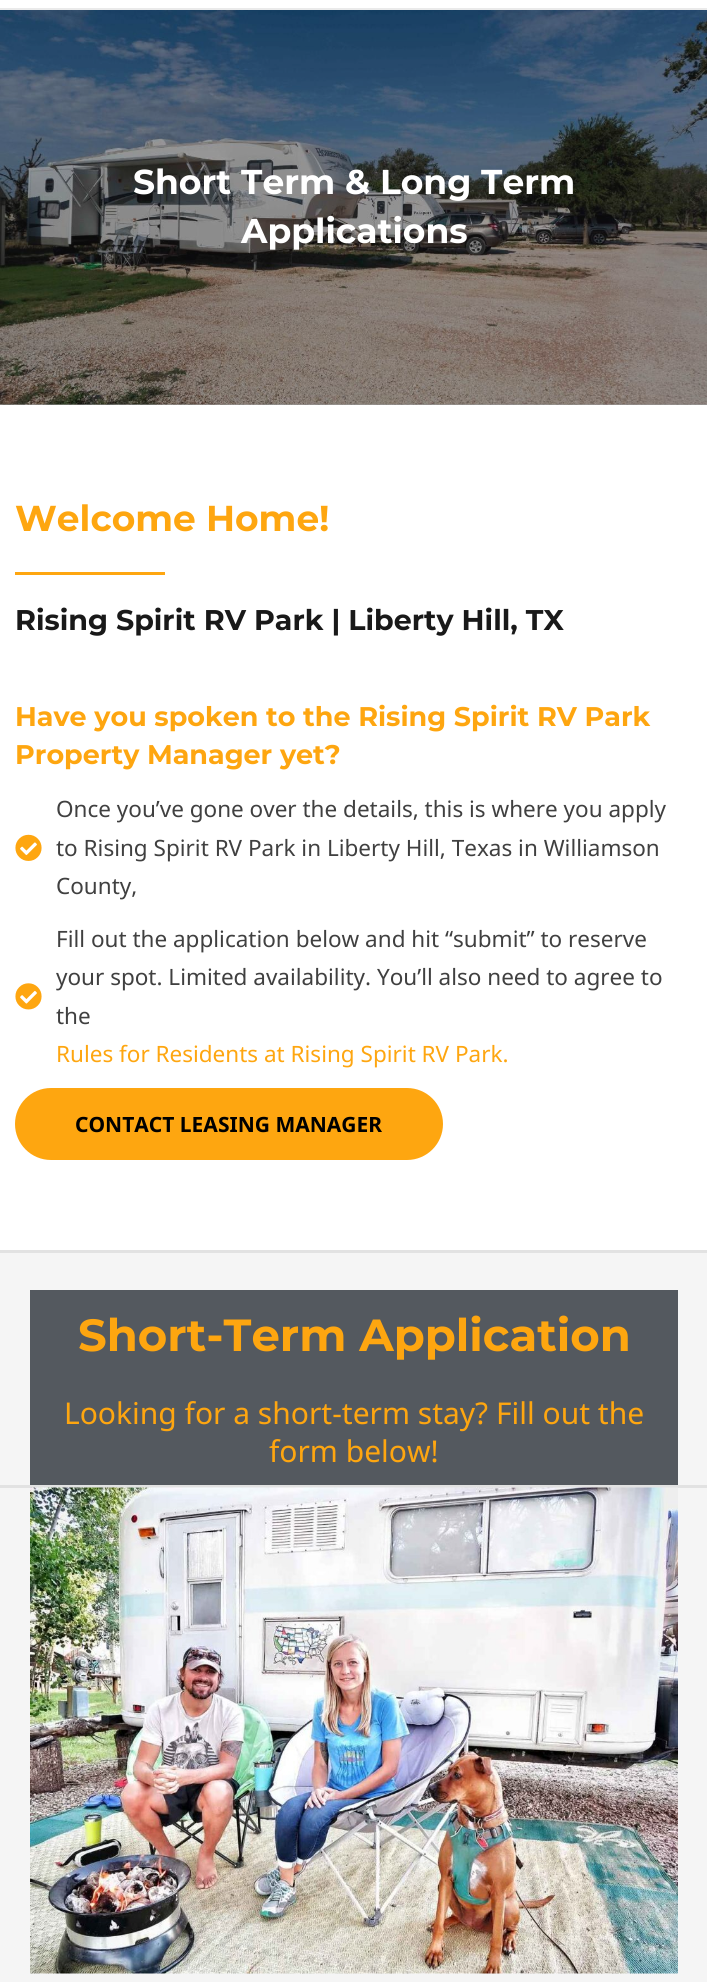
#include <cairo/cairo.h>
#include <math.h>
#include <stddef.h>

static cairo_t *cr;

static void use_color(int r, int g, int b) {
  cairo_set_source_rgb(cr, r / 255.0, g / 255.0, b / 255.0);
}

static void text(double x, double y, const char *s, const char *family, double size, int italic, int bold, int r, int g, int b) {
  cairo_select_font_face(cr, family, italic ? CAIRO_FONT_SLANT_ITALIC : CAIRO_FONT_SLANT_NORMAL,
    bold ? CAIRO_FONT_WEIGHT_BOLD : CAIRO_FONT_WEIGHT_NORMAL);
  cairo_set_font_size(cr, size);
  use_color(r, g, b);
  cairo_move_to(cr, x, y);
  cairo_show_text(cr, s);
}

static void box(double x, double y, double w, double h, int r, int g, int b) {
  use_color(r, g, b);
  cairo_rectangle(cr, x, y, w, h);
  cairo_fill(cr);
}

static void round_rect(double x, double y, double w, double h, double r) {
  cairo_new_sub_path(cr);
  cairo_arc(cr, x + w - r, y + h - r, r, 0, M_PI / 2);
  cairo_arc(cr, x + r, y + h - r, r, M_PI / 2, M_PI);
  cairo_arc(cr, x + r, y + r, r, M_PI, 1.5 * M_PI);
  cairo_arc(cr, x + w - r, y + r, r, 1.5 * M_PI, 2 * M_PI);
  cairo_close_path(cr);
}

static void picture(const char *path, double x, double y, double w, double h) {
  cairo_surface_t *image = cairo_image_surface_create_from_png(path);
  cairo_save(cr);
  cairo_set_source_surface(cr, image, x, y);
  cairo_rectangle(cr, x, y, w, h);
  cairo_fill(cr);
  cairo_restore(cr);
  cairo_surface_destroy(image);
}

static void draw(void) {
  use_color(245, 245, 245);
  cairo_paint(cr);
  box(0, 404, 707, 1, 157, 157, 157);
  box(0, 0, 707, 8, 255, 255, 255);
  box(0, 8, 707, 2, 234, 234, 234);
  picture("img_01.png", 0, 10, 707, 395);
  box(0, 405, 707, 845, 255, 255, 255);
  box(15, 572, 150, 3, 254, 166, 16);
  picture("img_02.png", 15, 834, 27, 27);
  picture("img_03.png", 15, 983, 27, 27);
  round_rect(15, 1088, 428, 72, 36);
  cairo_fill(cr);
  box(0, 1250, 707, 3, 226, 226, 226);
  box(30, 1290, 648, 195, 84, 89, 95);
  box(0, 1485, 707, 3, 226, 226, 226);
  picture("img_04.png", 30, 1487, 648, 487);
  text(133, 194, "Short Term & Long Term", "Montserrat", 34.5, 0, 1, 255, 255, 255);
  text(241, 243, "Applications", "Montserrat", 34.5, 0, 1, 255, 255, 255);
  text(15, 531, "Welcome Home!", "Montserrat", 36, 0, 1, 254, 166, 16);
  text(15, 630, "Rising Spirit RV Park | Liberty Hill, TX", "Montserrat", 28.5, 0, 1, 25, 25, 25);
  text(15, 726, "Have you spoken to the Rising Spirit RV Park", "Montserrat", 27, 0, 1, 254, 166, 16);
  text(15, 764, "Property Manager yet?", "Montserrat", 27, 0, 1, 254, 166, 16);
  text(56, 817, "Once you’ve gone over the details, this is where you apply", "Noto Sans", 22.5, 0, 0, 64, 64, 64);
  text(56, 856, "to Rising Spirit RV Park in Liberty Hill, Texas in Williamson", "Noto Sans", 22.5, 0, 0, 64, 64, 64);
  text(56, 894, "County,", "Noto Sans", 22.5, 0, 0, 64, 64, 64);
  text(56, 947, "Fill out the application below and hit “submit” to reserve", "Noto Sans", 22.5, 0, 0, 64, 64, 64);
  text(56, 985, "your spot. Limited availability. You’ll also need to agree to", "Noto Sans", 22.5, 0, 0, 64, 64, 64);
  text(56, 1024, "the", "Noto Sans", 22.5, 0, 0, 64, 64, 64);
  text(56, 1062, "Rules for Residents at Rising Spirit RV Park.", "Noto Sans", 22.5, 0, 0, 254, 166, 16);
  text(75, 1132, "CONTACT LEASING MANAGER", "Noto Sans", 21, 0, 1, 0, 0, 0);
  text(78, 1351, "Short-Term Application", "Montserrat", 45, 0, 1, 254, 166, 16);
  text(64, 1424, "Looking for a short-term stay? Fill out the", "Noto Sans", 30, 0, 0, 254, 166, 16);
  text(269, 1462, "form below!", "Noto Sans", 30, 0, 0, 254, 166, 16);
}

int main(void) {
  cairo_surface_t *surface = cairo_image_surface_create(CAIRO_FORMAT_RGB24, 707, 1982);
  cr = cairo_create(surface);
  cairo_font_options_t *options = cairo_font_options_create();
  cairo_font_options_set_hint_metrics(options, CAIRO_HINT_METRICS_OFF);
  cairo_font_options_set_hint_style(options, CAIRO_HINT_STYLE_NONE);
  cairo_set_font_options(cr, options);
  cairo_set_miter_limit(cr, 4);
  draw();
  cairo_surface_write_to_png(surface, "out.png");
  cairo_font_options_destroy(options);
  cairo_destroy(cr);
  cairo_surface_destroy(surface);
  return 0;
}
